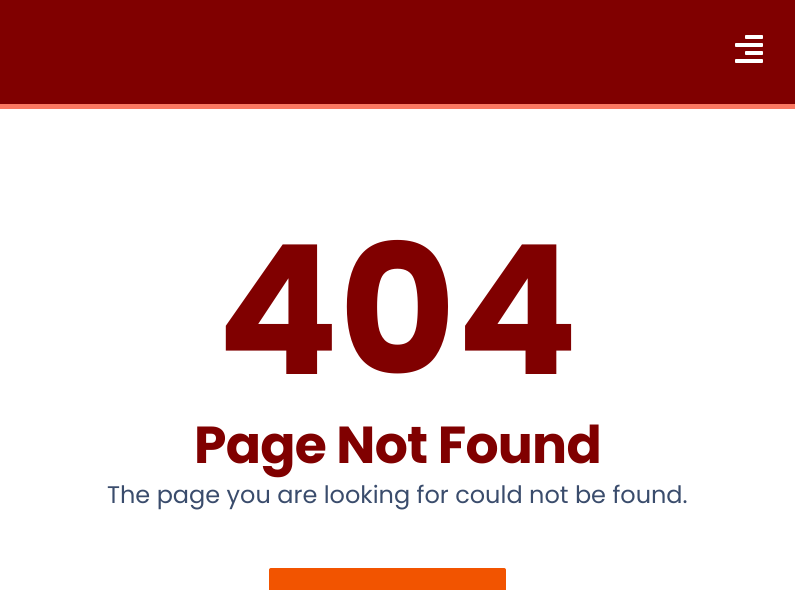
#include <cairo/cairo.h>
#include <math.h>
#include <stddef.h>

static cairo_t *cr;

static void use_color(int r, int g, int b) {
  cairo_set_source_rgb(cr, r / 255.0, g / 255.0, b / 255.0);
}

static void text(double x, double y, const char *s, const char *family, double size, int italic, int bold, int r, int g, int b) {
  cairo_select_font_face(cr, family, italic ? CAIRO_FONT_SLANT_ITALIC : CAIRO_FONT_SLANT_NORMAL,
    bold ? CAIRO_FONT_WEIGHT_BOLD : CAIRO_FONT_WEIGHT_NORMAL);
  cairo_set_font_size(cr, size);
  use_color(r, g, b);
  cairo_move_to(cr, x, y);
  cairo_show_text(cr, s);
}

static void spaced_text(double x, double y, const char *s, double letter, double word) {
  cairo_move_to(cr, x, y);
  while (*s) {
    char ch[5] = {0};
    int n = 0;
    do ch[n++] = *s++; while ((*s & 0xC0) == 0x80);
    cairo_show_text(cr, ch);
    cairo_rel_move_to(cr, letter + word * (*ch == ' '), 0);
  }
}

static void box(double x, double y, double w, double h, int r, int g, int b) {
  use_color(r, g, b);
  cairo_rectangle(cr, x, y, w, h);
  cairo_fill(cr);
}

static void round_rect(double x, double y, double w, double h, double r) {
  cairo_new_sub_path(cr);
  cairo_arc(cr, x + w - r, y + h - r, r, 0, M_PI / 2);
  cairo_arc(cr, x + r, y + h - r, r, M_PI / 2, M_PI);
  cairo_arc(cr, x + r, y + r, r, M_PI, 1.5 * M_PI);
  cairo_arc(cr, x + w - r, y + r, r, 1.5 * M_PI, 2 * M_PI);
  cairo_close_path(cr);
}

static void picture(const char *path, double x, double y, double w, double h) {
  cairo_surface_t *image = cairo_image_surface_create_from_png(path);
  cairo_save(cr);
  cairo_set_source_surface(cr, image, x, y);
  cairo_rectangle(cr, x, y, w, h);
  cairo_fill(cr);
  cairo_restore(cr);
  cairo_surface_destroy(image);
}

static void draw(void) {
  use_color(255, 255, 255);
  cairo_paint(cr);
  box(0, 0, 795, 104, 128, 0, 0);
  box(0, 104, 795, 5, 250, 120, 98);
  picture("img_01.png", 735, 35, 28, 28);
  use_color(242, 84, 0);
  round_rect(269.5, 568.5, 236, 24, 1.5);
  cairo_fill_preserve(cr);
  cairo_set_line_width(cr, 1);
  cairo_stroke(cr);
  text(217, 374, "404", "Poppins", 180, 0, 1, 128, 0, 0);
  cairo_set_font_size(cr, 52);
  spaced_text(194, 463, "Page Not Found", -0.75, 0);
  text(107, 503, "The page you are looking for could not be found.", "Poppins", 24, 0, 0, 58, 76, 108);
}

int main(void) {
  cairo_surface_t *surface = cairo_image_surface_create(CAIRO_FORMAT_RGB24, 795, 590);
  cr = cairo_create(surface);
  cairo_font_options_t *options = cairo_font_options_create();
  cairo_font_options_set_hint_metrics(options, CAIRO_HINT_METRICS_OFF);
  cairo_font_options_set_hint_style(options, CAIRO_HINT_STYLE_NONE);
  cairo_set_font_options(cr, options);
  cairo_set_miter_limit(cr, 4);
  draw();
  cairo_surface_write_to_png(surface, "out.png");
  cairo_font_options_destroy(options);
  cairo_destroy(cr);
  cairo_surface_destroy(surface);
  return 0;
}
